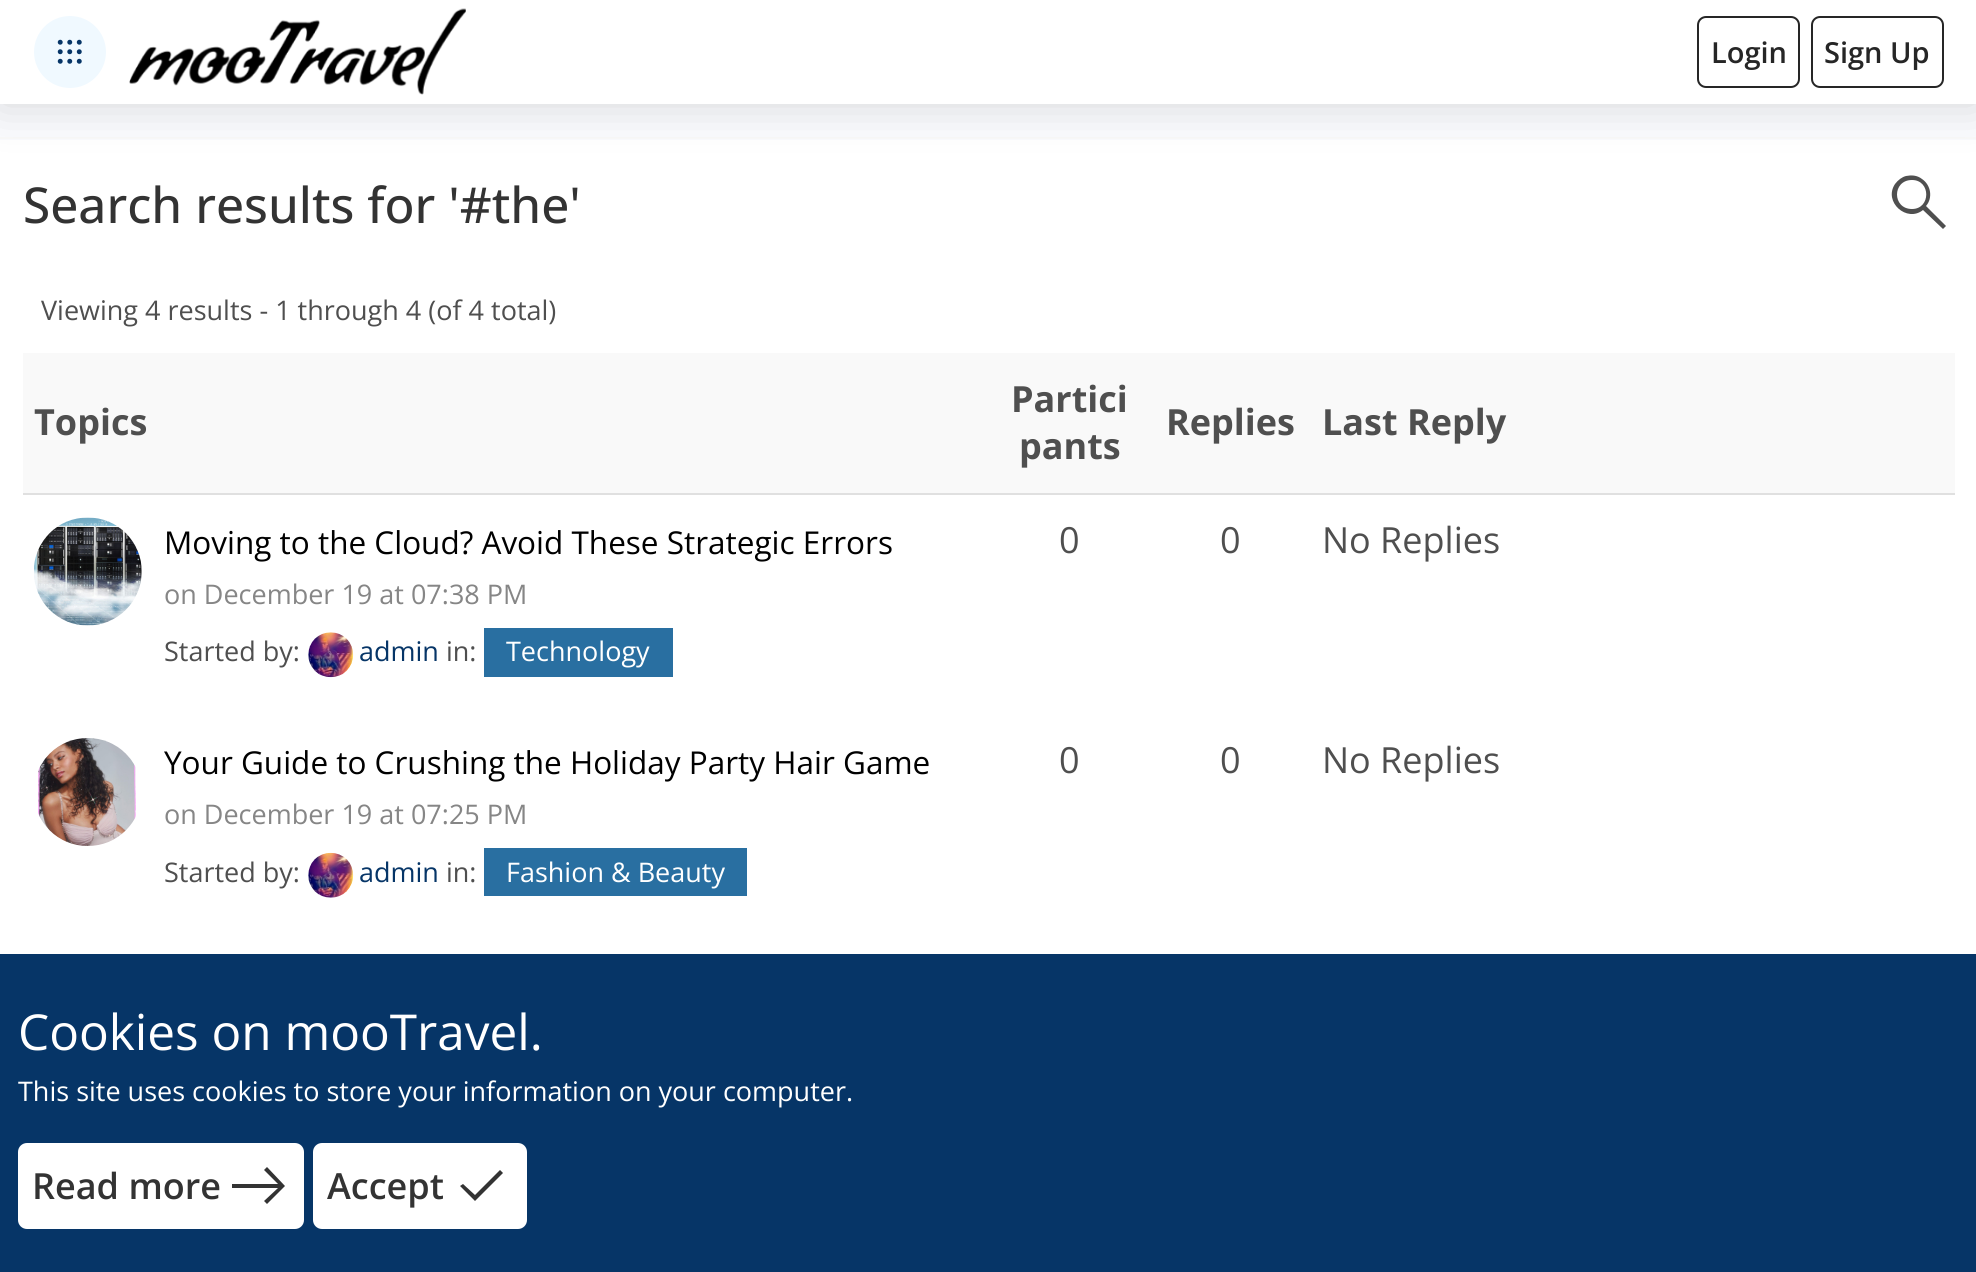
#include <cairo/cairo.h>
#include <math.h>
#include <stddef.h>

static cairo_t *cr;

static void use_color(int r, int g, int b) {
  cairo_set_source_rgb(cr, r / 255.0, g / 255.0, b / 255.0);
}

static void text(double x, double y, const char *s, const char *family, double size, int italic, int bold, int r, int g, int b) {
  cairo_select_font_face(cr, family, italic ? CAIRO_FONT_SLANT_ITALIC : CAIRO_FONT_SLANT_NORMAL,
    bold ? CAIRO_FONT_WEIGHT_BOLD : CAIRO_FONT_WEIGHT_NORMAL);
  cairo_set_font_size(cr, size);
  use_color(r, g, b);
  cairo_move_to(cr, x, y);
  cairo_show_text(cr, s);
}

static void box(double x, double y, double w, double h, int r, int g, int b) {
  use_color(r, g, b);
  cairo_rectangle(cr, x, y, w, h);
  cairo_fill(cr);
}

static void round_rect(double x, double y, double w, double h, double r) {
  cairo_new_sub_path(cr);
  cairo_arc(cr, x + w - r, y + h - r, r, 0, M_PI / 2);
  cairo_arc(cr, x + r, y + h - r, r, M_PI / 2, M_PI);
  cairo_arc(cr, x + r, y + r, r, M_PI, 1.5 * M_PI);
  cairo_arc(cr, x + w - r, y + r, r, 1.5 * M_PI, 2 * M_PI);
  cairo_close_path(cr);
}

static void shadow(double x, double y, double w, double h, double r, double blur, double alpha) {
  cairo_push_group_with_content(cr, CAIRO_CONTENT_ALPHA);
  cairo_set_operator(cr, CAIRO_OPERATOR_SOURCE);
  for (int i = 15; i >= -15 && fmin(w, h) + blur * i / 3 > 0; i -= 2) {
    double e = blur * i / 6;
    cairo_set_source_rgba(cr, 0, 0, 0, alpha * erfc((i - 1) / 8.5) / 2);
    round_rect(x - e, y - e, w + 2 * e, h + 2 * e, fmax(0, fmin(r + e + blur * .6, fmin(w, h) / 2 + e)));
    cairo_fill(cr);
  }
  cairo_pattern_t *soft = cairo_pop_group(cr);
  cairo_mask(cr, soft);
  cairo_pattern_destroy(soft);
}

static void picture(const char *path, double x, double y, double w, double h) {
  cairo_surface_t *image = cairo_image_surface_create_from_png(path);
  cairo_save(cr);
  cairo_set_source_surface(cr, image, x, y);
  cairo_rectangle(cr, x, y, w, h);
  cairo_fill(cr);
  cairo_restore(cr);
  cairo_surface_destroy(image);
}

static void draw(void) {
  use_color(250, 251, 254);
  cairo_paint(cr);
  box(0, 137, 1976, 2, 249, 249, 249);
  box(0, 140, 1976, 814, 255, 255, 255);
  use_color(99, 99, 99);
  shadow(0, 0, 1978, 104, 0, 22.5, 0.25);
  box(0, 0, 1976, 104, 255, 255, 255);
  use_color(240, 249, 255);
  cairo_arc(cr, 70, 52, 35, 0, 2 * M_PI);
  cairo_fill_preserve(cr);
  cairo_stroke(cr);
  picture("img_01.png", 57, 39, 25, 25);
  picture("img_02.png", 129, 8, 337, 87);
  round_rect(1698, 17, 101, 70, 8);
  use_color(38, 38, 38);
  cairo_stroke(cr);
  round_rect(1812, 17, 131, 70, 8);
  cairo_stroke(cr);
  use_color(79, 79, 79);
  cairo_new_path(cr);
  cairo_move_to(cr, 1943, 229);
  cairo_line_to(cr, 1923, 210);
  cairo_curve_to(cr, 1907, 223, 1883, 202, 1895, 184);
  cairo_curve_to(cr, 1898, 180, 1902, 177, 1906, 176);
  cairo_curve_to(cr, 1911, 175, 1917, 175, 1922, 179);
  cairo_curve_to(cr, 1931, 185, 1933, 198, 1926, 206);
  cairo_line_to(cr, 1946, 226);
  cairo_close_path(cr);
  cairo_move_to(cr, 1912, 209);
  cairo_curve_to(cr, 1931, 209, 1931, 180, 1912, 180);
  cairo_curve_to(cr, 1892, 180, 1892, 209, 1912, 209);
  cairo_close_path(cr);
  cairo_fill(cr);
  box(23, 353, 1932, 140, 249, 249, 249);
  box(23, 493, 1932, 2, 224, 224, 224);
  picture("img_03.png", 34, 517, 108, 109);
  picture("img_04.png", 308, 632, 46, 46);
  box(484, 628, 189, 49, 41, 111, 161);
  picture("img_05.png", 38, 738, 98, 108);
  picture("img_06.png", 308, 852, 46, 46);
  box(484, 848, 263, 48, 41, 111, 161);
  box(0, 954, 1976, 318, 6, 53, 103);
  use_color(255, 255, 255);
  round_rect(19, 1144, 284, 84, 8);
  cairo_fill_preserve(cr);
  cairo_stroke(cr);
  use_color(51, 51, 51);
  cairo_new_path(cr);
  cairo_move_to(cr, 267, 1204);
  cairo_line_to(cr, 264, 1201);
  cairo_line_to(cr, 278, 1188);
  cairo_line_to(cr, 232, 1188);
  cairo_line_to(cr, 232, 1184);
  cairo_line_to(cr, 278, 1184);
  cairo_line_to(cr, 264, 1170);
  cairo_line_to(cr, 267, 1167);
  cairo_line_to(cr, 285, 1186);
  cairo_close_path(cr);
  cairo_fill(cr);
  use_color(255, 255, 255);
  round_rect(314, 1144, 212, 84, 8);
  cairo_fill_preserve(cr);
  cairo_stroke(cr);
  use_color(51, 51, 51);
  cairo_new_path(cr);
  cairo_move_to(cr, 475, 1201);
  cairo_line_to(cr, 460, 1186);
  cairo_line_to(cr, 463, 1184);
  cairo_line_to(cr, 475, 1195);
  cairo_line_to(cr, 500, 1170);
  cairo_line_to(cr, 503, 1173);
  cairo_close_path(cr);
  cairo_fill(cr);
  text(1711, 63, "Login", "Open Sans SemiBold", 29, 0, 0, 38, 38, 38);
  text(1824, 63, "Sign Up", "Open Sans SemiBold", 29, 0, 0, 38, 38, 38);
  text(23, 223, "Search results for '#the'", "Open Sans Medium", 49.5, 0, 0, 51, 51, 51);
  text(41, 320, "Viewing 4 results - 1 through 4 (of 4 total)", "Open Sans", 27, 0, 0, 79, 79, 79);
  text(34, 435, "Topics", "Open Sans", 36, 0, 1, 79, 79, 79);
  text(1011, 412, "Partici", "Open Sans", 36, 0, 1, 79, 79, 79);
  text(1019, 459, "pants", "Open Sans", 36, 0, 1, 79, 79, 79);
  text(1166, 435, "Replies", "Open Sans", 36, 0, 1, 79, 79, 79);
  text(1322, 435, "Last Reply", "Open Sans", 36, 0, 1, 79, 79, 79);
  text(164, 554, "Moving to the Cloud? Avoid These Strategic Errors", "Open Sans", 31.5, 0, 0, 0, 0, 0);
  text(164, 604, "on December 19 at 07:38 PM", "Open Sans", 27, 0, 0, 134, 134, 134);
  text(164, 661, "Started by:", "Open Sans", 27, 0, 0, 79, 79, 79);
  text(359, 661, "admin", "Open Sans", 27, 0, 0, 6, 53, 103);
  text(446, 661, "in:", "Open Sans", 27, 0, 0, 79, 79, 79);
  text(506, 661, "Technology", "Open Sans", 27, 0, 0, 255, 255, 255);
  text(1059, 553, "0", "Open Sans", 36, 0, 0, 79, 79, 79);
  text(1220, 553, "0", "Open Sans", 36, 0, 0, 79, 79, 79);
  text(1322, 553, "No Replies", "Open Sans", 36, 0, 0, 79, 79, 79);
  text(164, 774, "Your Guide to Crushing the Holiday Party Hair Game", "Open Sans", 31.5, 0, 0, 0, 0, 0);
  text(164, 824, "on December 19 at 07:25 PM", "Open Sans", 27, 0, 0, 134, 134, 134);
  text(164, 882, "Started by:", "Open Sans", 27, 0, 0, 79, 79, 79);
  text(359, 882, "admin", "Open Sans", 27, 0, 0, 6, 53, 103);
  text(446, 882, "in:", "Open Sans", 27, 0, 0, 79, 79, 79);
  text(506, 882, "Fashion & Beauty", "Open Sans", 27, 0, 0, 255, 255, 255);
  text(1059, 773, "0", "Open Sans", 36, 0, 0, 79, 79, 79);
  text(1220, 773, "0", "Open Sans", 36, 0, 0, 79, 79, 79);
  text(1322, 773, "No Replies", "Open Sans", 36, 0, 0, 79, 79, 79);
  text(18, 1050, "Cookies on mooTravel.", "Open Sans", 49.5, 0, 0, 255, 255, 255);
  text(18, 1101, "This site uses cookies to store your information on your computer.", "Open Sans", 27, 0, 0, 255, 255, 255);
  text(32, 1199, "Read more", "Open Sans SemiBold", 36, 0, 0, 51, 51, 51);
  text(327, 1199, "Accept", "Open Sans SemiBold", 36, 0, 0, 51, 51, 51);
}

int main(void) {
  cairo_surface_t *surface = cairo_image_surface_create(CAIRO_FORMAT_RGB24, 1976, 1272);
  cr = cairo_create(surface);
  cairo_font_options_t *options = cairo_font_options_create();
  cairo_font_options_set_hint_metrics(options, CAIRO_HINT_METRICS_OFF);
  cairo_font_options_set_hint_style(options, CAIRO_HINT_STYLE_NONE);
  cairo_set_font_options(cr, options);
  cairo_set_miter_limit(cr, 4);
  draw();
  cairo_surface_write_to_png(surface, "out.png");
  cairo_font_options_destroy(options);
  cairo_destroy(cr);
  cairo_surface_destroy(surface);
  return 0;
}
